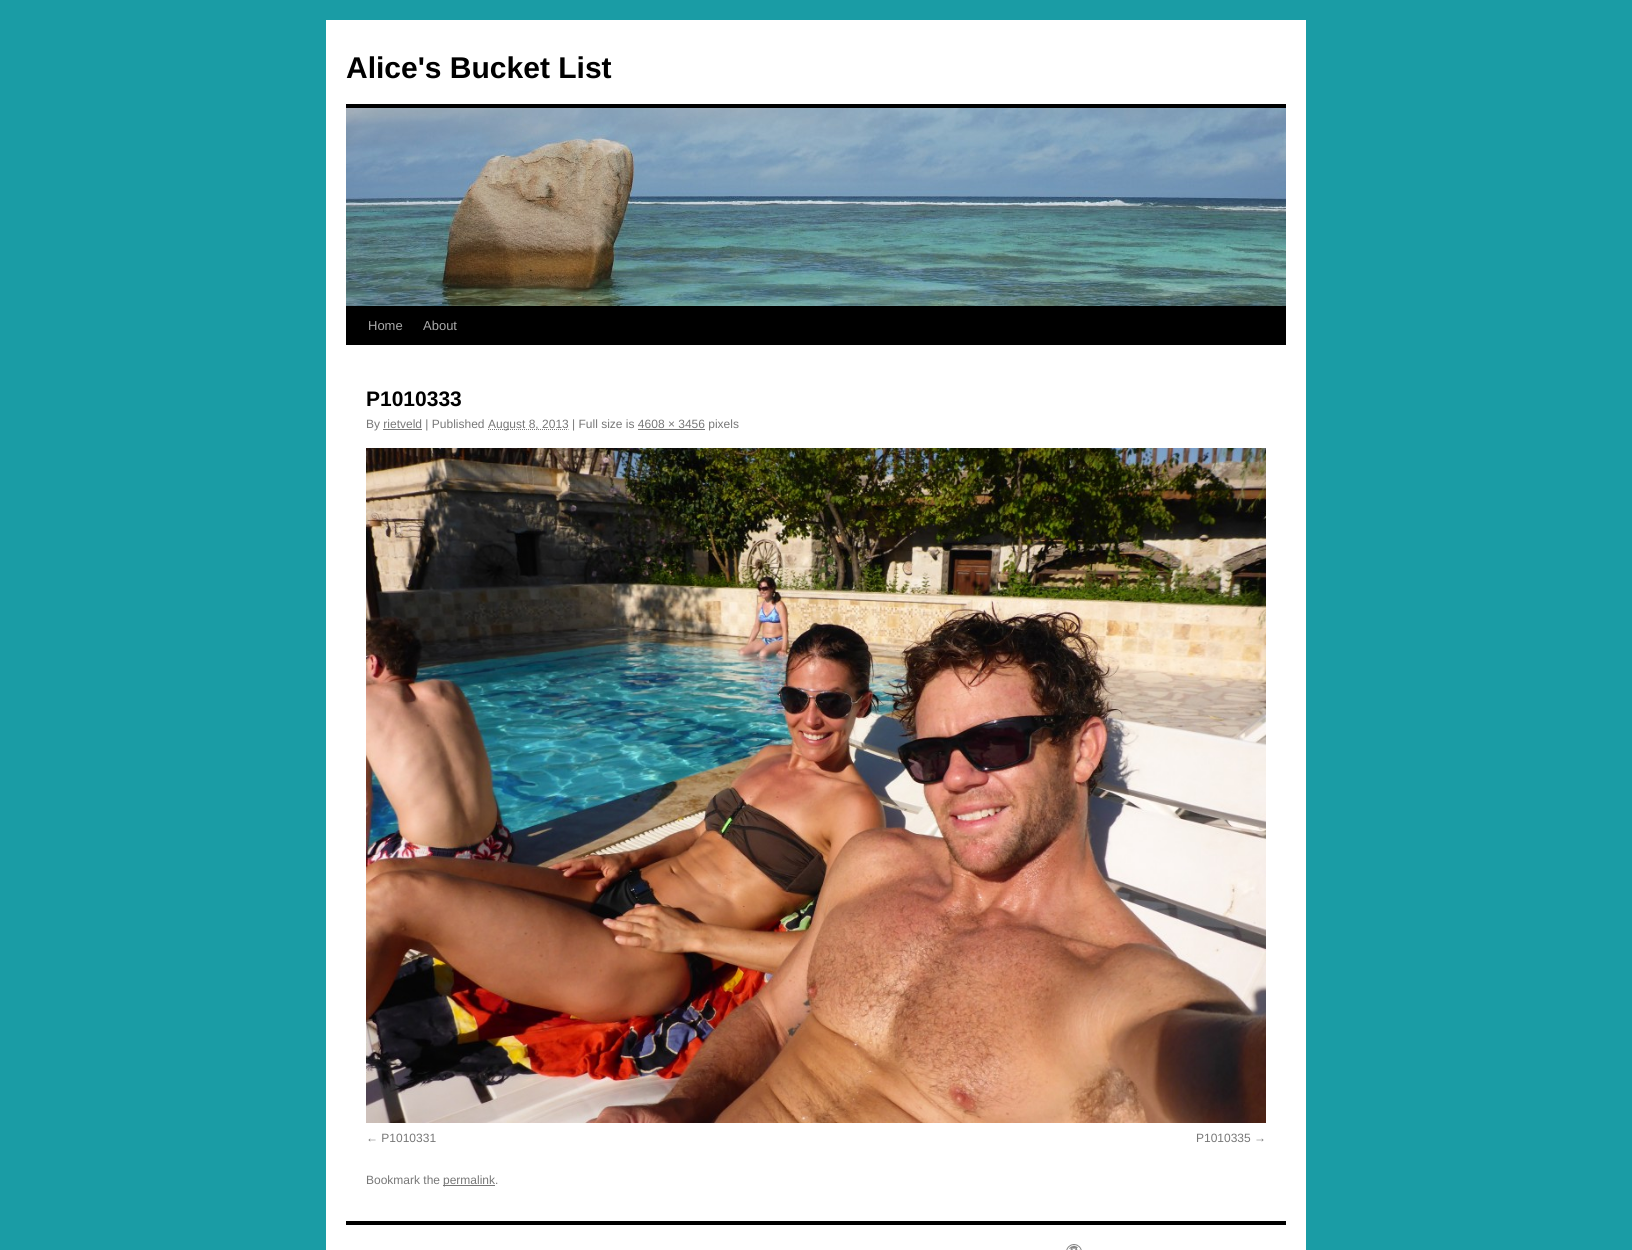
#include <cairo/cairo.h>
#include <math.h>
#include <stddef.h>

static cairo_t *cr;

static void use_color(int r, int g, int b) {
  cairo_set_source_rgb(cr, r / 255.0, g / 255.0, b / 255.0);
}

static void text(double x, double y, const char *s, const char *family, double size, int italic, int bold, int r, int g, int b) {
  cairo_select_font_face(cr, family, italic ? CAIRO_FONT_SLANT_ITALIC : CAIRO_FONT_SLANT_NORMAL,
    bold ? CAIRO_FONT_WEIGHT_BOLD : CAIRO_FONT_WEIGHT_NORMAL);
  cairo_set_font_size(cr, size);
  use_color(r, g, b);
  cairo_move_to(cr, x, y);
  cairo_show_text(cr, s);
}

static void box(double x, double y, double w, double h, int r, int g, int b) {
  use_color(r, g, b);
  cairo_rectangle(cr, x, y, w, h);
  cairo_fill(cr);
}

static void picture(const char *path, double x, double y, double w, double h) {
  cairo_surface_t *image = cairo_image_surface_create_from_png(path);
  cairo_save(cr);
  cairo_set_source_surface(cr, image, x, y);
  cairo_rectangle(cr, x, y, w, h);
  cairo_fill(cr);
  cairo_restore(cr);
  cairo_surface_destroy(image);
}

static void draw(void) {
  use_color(26, 156, 165);
  cairo_paint(cr);
  box(326, 20, 980, 1230, 255, 255, 255);
  box(346, 104, 940, 4, 0, 0, 0);
  box(346, 306, 940, 39, 0, 0, 0);
  picture("img_01.png", 346, 108, 940, 198);
  cairo_new_path(cr);
  cairo_move_to(cr, 488, 429.5);
  cairo_line_to(cr, 568.5, 429.5);
  use_color(119, 119, 119);
  cairo_set_line_width(cr, 1);
  cairo_set_dash(cr, (double[]){1, 1}, 2, 0);
  cairo_stroke(cr);
  box(383, 429, 39, 1, 119, 119, 119);
  box(638, 429, 67, 1, 119, 119, 119);
  picture("img_02.png", 366, 448, 900, 675);
  box(443, 1185, 52, 1, 119, 119, 119);
  box(346, 1221, 940, 4, 0, 0, 0);
  picture("img_03.png", 1066, 1244, 16, 6);
  text(346, 78, "Alice's Bucket List", "Liberation Sans", 30, 0, 1, 0, 0, 0);
  text(368, 330, "Home", "Liberation Sans", 13, 0, 0, 170, 170, 170);
  text(423, 330, "About", "Liberation Sans", 13, 0, 0, 170, 170, 170);
  text(366, 406, "P1010333", "Liberation Sans", 21, 0, 1, 0, 0, 0);
  text(366, 428, "By rietveld | Published", "Liberation Sans", 12, 0, 0, 119, 119, 119);
  text(488, 428, "August 8, 2013 | Full size is 4608 × 3456 pixels", "Liberation Sans", 12, 0, 0, 119, 119, 119);
  text(366, 1142, "← P1010331", "Liberation Sans", 12, 0, 0, 119, 119, 119);
  text(1196, 1142, "P1010335 →", "Liberation Sans", 12, 0, 0, 119, 119, 119);
  text(366, 1184, "Bookmark the", "Liberation Sans", 12, 0, 0, 119, 119, 119);
  text(443, 1184, "permalink.", "Liberation Sans", 12, 0, 0, 119, 119, 119);
}

int main(void) {
  cairo_surface_t *surface = cairo_image_surface_create(CAIRO_FORMAT_RGB24, 1632, 1250);
  cr = cairo_create(surface);
  cairo_font_options_t *options = cairo_font_options_create();
  cairo_font_options_set_hint_metrics(options, CAIRO_HINT_METRICS_OFF);
  cairo_font_options_set_hint_style(options, CAIRO_HINT_STYLE_NONE);
  cairo_set_font_options(cr, options);
  cairo_set_miter_limit(cr, 4);
  draw();
  cairo_surface_write_to_png(surface, "out.png");
  cairo_font_options_destroy(options);
  cairo_destroy(cr);
  cairo_surface_destroy(surface);
  return 0;
}
